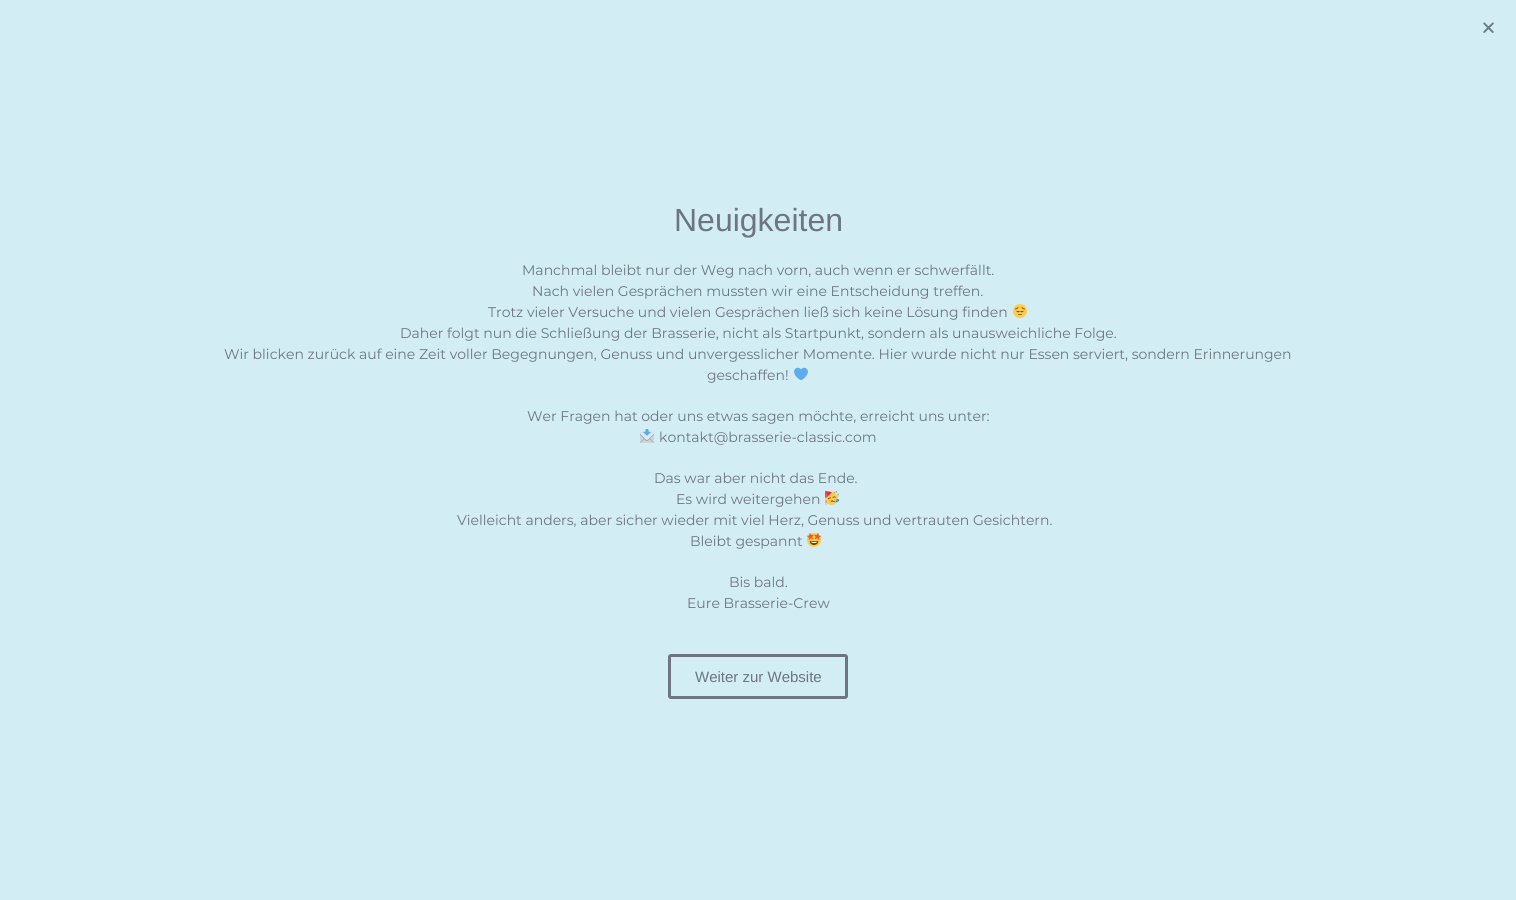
#include <cairo/cairo.h>
#include <math.h>
#include <stddef.h>

static cairo_t *cr;

static void use_color(int r, int g, int b) {
  cairo_set_source_rgb(cr, r / 255.0, g / 255.0, b / 255.0);
}

static void text(double x, double y, const char *s, const char *family, double size, int italic, int bold, int r, int g, int b) {
  cairo_select_font_face(cr, family, italic ? CAIRO_FONT_SLANT_ITALIC : CAIRO_FONT_SLANT_NORMAL,
    bold ? CAIRO_FONT_WEIGHT_BOLD : CAIRO_FONT_WEIGHT_NORMAL);
  cairo_set_font_size(cr, size);
  use_color(r, g, b);
  cairo_move_to(cr, x, y);
  cairo_show_text(cr, s);
}

static void round_rect(double x, double y, double w, double h, double r) {
  cairo_new_sub_path(cr);
  cairo_arc(cr, x + w - r, y + h - r, r, 0, M_PI / 2);
  cairo_arc(cr, x + r, y + h - r, r, M_PI / 2, M_PI);
  cairo_arc(cr, x + r, y + r, r, M_PI, 1.5 * M_PI);
  cairo_arc(cr, x + w - r, y + r, r, 1.5 * M_PI, 2 * M_PI);
  cairo_close_path(cr);
}

static void picture(const char *path, double x, double y, double w, double h) {
  cairo_surface_t *image = cairo_image_surface_create_from_png(path);
  cairo_save(cr);
  cairo_set_source_surface(cr, image, x, y);
  cairo_rectangle(cr, x, y, w, h);
  cairo_fill(cr);
  cairo_restore(cr);
  cairo_surface_destroy(image);
}

static void draw(void) {
  use_color(211, 237, 244);
  cairo_paint(cr);
  picture("img_01.png", 1483, 22, 11, 11);
  picture("img_02.png", 1013, 304, 14, 14);
  picture("img_03.png", 794, 367, 14, 14);
  picture("img_04.png", 640, 429, 14, 14);
  picture("img_05.png", 825, 491, 14, 14);
  picture("img_06.png", 807, 533, 14, 14);
  round_rect(669.5, 655.5, 177, 42, 1.5);
  use_color(109, 118, 128);
  cairo_set_line_width(cr, 3);
  cairo_stroke(cr);
  text(674, 231, "Neuigkeiten", "Liberation Sans", 32, 0, 0, 109, 118, 128);
  text(522, 275, "Manchmal bleibt nur der Weg nach vorn, auch wenn er schwerfällt.", "Montserrat", 14, 0, 0, 109, 118, 128);
  text(532, 296, "Nach vielen Gesprächen mussten wir eine Entscheidung treffen.", "Montserrat", 14, 0, 0, 109, 118, 128);
  text(488, 317, "Trotz vieler Versuche und vielen Gesprächen ließ sich keine Lösung finden", "Montserrat", 14, 0, 0, 109, 118, 128);
  text(400, 338, "Daher folgt nun die Schließung der Brasserie, nicht als Startpunkt, sondern als unausweichliche Folge.", "Montserrat", 14, 0, 0, 109, 118, 128);
  text(224, 359, "Wir blicken zurück auf eine Zeit voller Begegnungen, Genuss und unvergesslicher Momente. Hier wurde nicht nur Essen serviert, sondern Erinnerungen", "Montserrat", 14, 0, 0, 109, 118, 128);
  text(707, 380, "geschaffen!", "Montserrat", 14, 0, 0, 109, 118, 128);
  text(527, 421, "Wer Fragen hat oder uns etwas sagen möchte, erreicht uns unter:", "Montserrat", 14, 0, 0, 109, 118, 128);
  text(659, 442, "kontakt@brasserie-classic.com", "Montserrat", 14, 0, 0, 109, 118, 128);
  text(654, 483, "Das war aber nicht das Ende.", "Montserrat", 14, 0, 0, 109, 118, 128);
  text(676, 504, "Es wird weitergehen", "Montserrat", 14, 0, 0, 109, 118, 128);
  text(457, 525, "Vielleicht anders, aber sicher wieder mit viel Herz, Genuss und vertrauten Gesichtern.", "Montserrat", 14, 0, 0, 109, 118, 128);
  text(690, 546, "Bleibt gespannt", "Montserrat", 14, 0, 0, 109, 118, 128);
  text(729, 587, "Bis bald.", "Montserrat", 14, 0, 0, 109, 118, 128);
  text(687, 608, "Eure Brasserie-Crew", "Montserrat", 14, 0, 0, 109, 118, 128);
  text(695, 682, "Weiter zur Website", "Liberation Sans", 15, 0, 0, 109, 118, 128);
}

int main(void) {
  cairo_surface_t *surface = cairo_image_surface_create(CAIRO_FORMAT_RGB24, 1516, 900);
  cr = cairo_create(surface);
  cairo_font_options_t *options = cairo_font_options_create();
  cairo_font_options_set_hint_metrics(options, CAIRO_HINT_METRICS_OFF);
  cairo_font_options_set_hint_style(options, CAIRO_HINT_STYLE_NONE);
  cairo_set_font_options(cr, options);
  cairo_set_miter_limit(cr, 4);
  draw();
  cairo_surface_write_to_png(surface, "out.png");
  cairo_font_options_destroy(options);
  cairo_destroy(cr);
  cairo_surface_destroy(surface);
  return 0;
}
